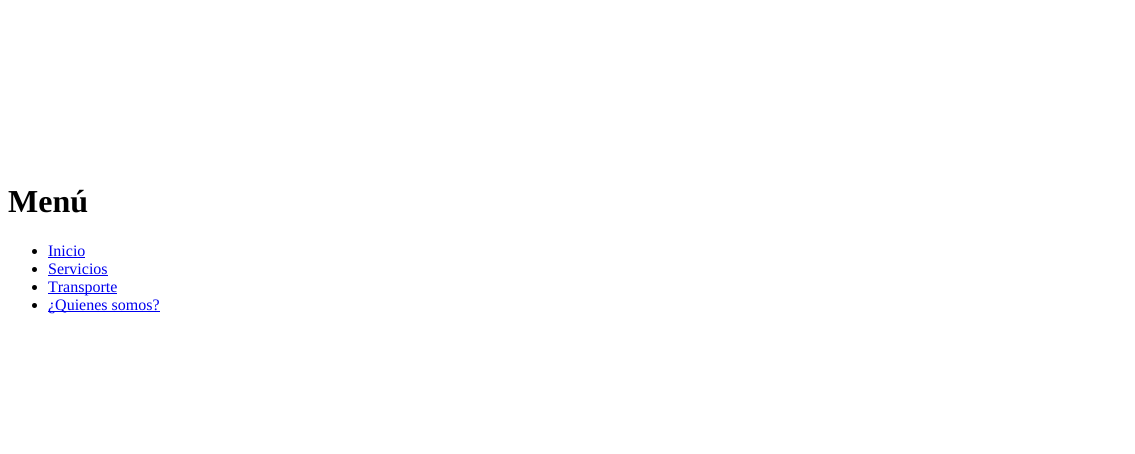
#include <cairo/cairo.h>
#include <math.h>
#include <stddef.h>

static cairo_t *cr;

static void use_color(int r, int g, int b) {
  cairo_set_source_rgb(cr, r / 255.0, g / 255.0, b / 255.0);
}

static void text(double x, double y, const char *s, const char *family, double size, int italic, int bold, int r, int g, int b) {
  cairo_select_font_face(cr, family, italic ? CAIRO_FONT_SLANT_ITALIC : CAIRO_FONT_SLANT_NORMAL,
    bold ? CAIRO_FONT_WEIGHT_BOLD : CAIRO_FONT_WEIGHT_NORMAL);
  cairo_set_font_size(cr, size);
  use_color(r, g, b);
  cairo_move_to(cr, x, y);
  cairo_show_text(cr, s);
}

static void box(double x, double y, double w, double h, int r, int g, int b) {
  use_color(r, g, b);
  cairo_rectangle(cr, x, y, w, h);
  cairo_fill(cr);
}

static void draw(void) {
  use_color(255, 255, 255);
  cairo_paint(cr);
  use_color(0, 0, 0);
  cairo_arc(cr, 34.5, 251.5, 2.5, 0, 2 * M_PI);
  cairo_fill(cr);
  box(48, 257, 37, 1, 0, 0, 238);
  use_color(0, 0, 0);
  cairo_arc(cr, 34.5, 269.5, 2.5, 0, 2 * M_PI);
  cairo_fill(cr);
  box(48, 275, 60, 1, 0, 0, 238);
  use_color(0, 0, 0);
  cairo_arc(cr, 34.5, 287.5, 2.5, 0, 2 * M_PI);
  cairo_fill(cr);
  box(48, 293, 69, 1, 0, 0, 238);
  use_color(0, 0, 0);
  cairo_arc(cr, 34.5, 305.5, 2.5, 0, 2 * M_PI);
  cairo_fill(cr);
  box(48, 311, 112, 1, 0, 0, 238);
  text(8, 212, "Menú", "Liberation Serif", 32, 0, 1, 0, 0, 0);
  text(48, 256, "Inicio", "Liberation Serif", 16, 0, 0, 0, 0, 238);
  text(48, 274, "Servicios", "Liberation Serif", 16, 0, 0, 0, 0, 238);
  text(48, 292, "Transporte", "Liberation Serif", 16, 0, 0, 0, 0, 238);
  text(48, 310, "¿Quienes somos?", "Liberation Serif", 16, 0, 0, 0, 0, 238);
}

int main(void) {
  cairo_surface_t *surface = cairo_image_surface_create(CAIRO_FORMAT_RGB24, 1135, 454);
  cr = cairo_create(surface);
  cairo_font_options_t *options = cairo_font_options_create();
  cairo_font_options_set_hint_metrics(options, CAIRO_HINT_METRICS_OFF);
  cairo_font_options_set_hint_style(options, CAIRO_HINT_STYLE_NONE);
  cairo_set_font_options(cr, options);
  cairo_set_miter_limit(cr, 4);
  draw();
  cairo_surface_write_to_png(surface, "out.png");
  cairo_font_options_destroy(options);
  cairo_destroy(cr);
  cairo_surface_destroy(surface);
  return 0;
}
